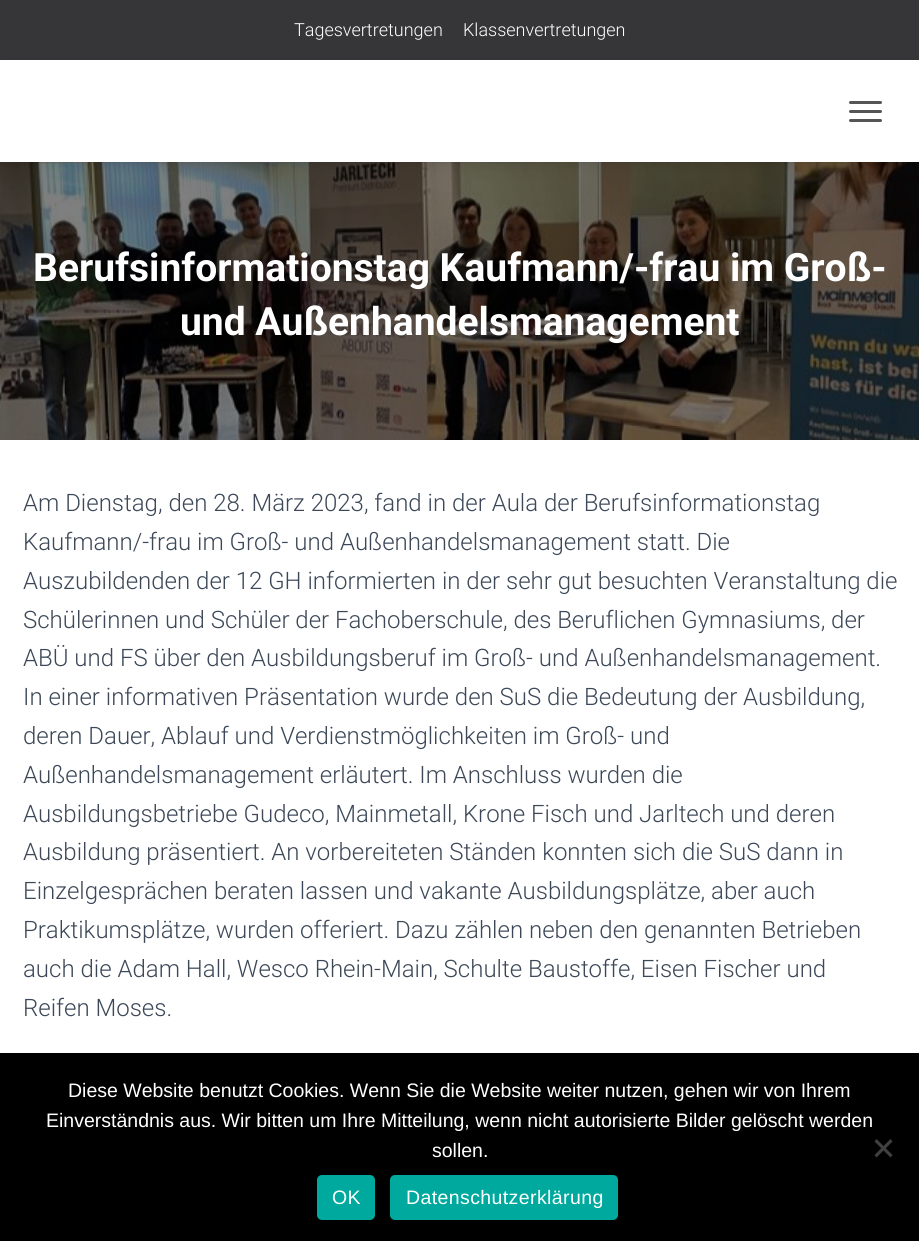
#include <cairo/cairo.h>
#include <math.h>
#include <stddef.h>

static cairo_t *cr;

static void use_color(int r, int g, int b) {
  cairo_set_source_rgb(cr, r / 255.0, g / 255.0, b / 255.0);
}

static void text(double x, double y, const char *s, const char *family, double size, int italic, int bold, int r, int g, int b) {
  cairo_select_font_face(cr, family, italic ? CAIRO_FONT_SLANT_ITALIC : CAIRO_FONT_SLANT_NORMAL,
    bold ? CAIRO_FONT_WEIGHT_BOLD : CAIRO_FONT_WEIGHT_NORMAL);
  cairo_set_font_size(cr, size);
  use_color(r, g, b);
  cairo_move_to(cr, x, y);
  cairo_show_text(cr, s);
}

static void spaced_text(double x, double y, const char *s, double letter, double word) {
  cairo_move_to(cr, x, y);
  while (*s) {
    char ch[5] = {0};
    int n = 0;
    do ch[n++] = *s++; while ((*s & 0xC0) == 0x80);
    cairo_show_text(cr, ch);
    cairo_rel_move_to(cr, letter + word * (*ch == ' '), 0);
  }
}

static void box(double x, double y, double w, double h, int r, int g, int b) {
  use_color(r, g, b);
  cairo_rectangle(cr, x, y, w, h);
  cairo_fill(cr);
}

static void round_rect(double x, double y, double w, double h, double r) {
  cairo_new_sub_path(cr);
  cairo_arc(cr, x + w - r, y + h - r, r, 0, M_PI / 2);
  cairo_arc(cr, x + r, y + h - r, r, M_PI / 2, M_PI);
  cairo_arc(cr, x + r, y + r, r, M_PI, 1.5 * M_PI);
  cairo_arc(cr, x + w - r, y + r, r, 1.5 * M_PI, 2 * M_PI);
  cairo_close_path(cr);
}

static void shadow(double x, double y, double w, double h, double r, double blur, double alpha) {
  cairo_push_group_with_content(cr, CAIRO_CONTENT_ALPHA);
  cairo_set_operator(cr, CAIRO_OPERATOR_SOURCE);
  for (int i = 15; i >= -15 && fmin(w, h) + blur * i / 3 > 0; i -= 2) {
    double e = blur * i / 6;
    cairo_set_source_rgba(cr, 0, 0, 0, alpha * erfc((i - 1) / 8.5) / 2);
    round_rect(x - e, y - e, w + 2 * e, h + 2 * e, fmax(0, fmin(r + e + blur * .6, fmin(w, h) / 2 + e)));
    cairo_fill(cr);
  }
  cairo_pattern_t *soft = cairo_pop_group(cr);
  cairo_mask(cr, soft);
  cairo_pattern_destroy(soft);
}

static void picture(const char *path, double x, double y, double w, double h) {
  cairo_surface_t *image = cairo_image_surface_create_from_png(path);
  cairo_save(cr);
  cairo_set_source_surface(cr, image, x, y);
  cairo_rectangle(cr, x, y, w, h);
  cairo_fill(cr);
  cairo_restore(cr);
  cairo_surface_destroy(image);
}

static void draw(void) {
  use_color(54, 53, 55);
  cairo_paint(cr);
  picture("img_01.png", 0, 162, 919, 278);
  use_color(0, 0, 0);
  shadow(9, 71, 902, 84, 0, 7.5, 0.42);
  box(0, 60, 919, 102, 255, 255, 255);
  use_color(85, 85, 85);
  round_rect(849, 101, 33, 3, 1.5);
  cairo_fill(cr);
  round_rect(849, 110, 33, 3, 1.5);
  cairo_fill(cr);
  round_rect(849, 119, 33, 3, 1.5);
  cairo_fill(cr);
  box(0, 440, 919, 613, 255, 255, 255);
  box(0, 1053, 919, 188, 0, 0, 0);
  use_color(64, 64, 64);
  cairo_new_path(cr);
  cairo_move_to(cr, 890.5, 1139);
  cairo_line_to(cr, 892.5, 1141.5);
  cairo_line_to(cr, 876.5, 1157.5);
  cairo_line_to(cr, 874.5, 1155);
  cairo_close_path(cr);
  cairo_fill(cr);
  cairo_new_path(cr);
  cairo_move_to(cr, 874.5, 1141.5);
  cairo_line_to(cr, 876.5, 1139);
  cairo_line_to(cr, 892.5, 1155);
  cairo_line_to(cr, 890.5, 1157.5);
  cairo_close_path(cr);
  cairo_fill(cr);
  use_color(0, 169, 157);
  round_rect(317, 1175, 58, 45, 5);
  cairo_fill(cr);
  round_rect(390, 1175, 228, 45, 5);
  cairo_fill(cr);
  text(294, 36, "Tagesvertretungen", "Roboto Light", 18, 0, 0, 255, 255, 255);
  text(463, 36, "Klassenvertretungen", "Roboto Light", 18, 0, 0, 255, 255, 255);
  text(33, 281, "Berufsinformationstag Kaufmann/-frau im Groß-", "Roboto", 39, 0, 1, 255, 255, 255);
  text(180, 335, "und Außenhandelsmanagement", "Roboto", 39, 0, 1, 255, 255, 255);
  text(23, 511, "Am Dienstag, den 28. März 2023, fand in der Aula der Berufsinformationstag", "Roboto Light", 24, 0, 0, 60, 72, 88);
  text(23, 550, "Kaufmann/-frau im Groß- und Außenhandelsmanagement statt. Die", "Roboto Light", 24, 0, 0, 60, 72, 88);
  text(23, 589, "Auszubildenden der 12 GH informierten in der sehr gut besuchten Veranstaltung die", "Roboto Light", 24, 0, 0, 60, 72, 88);
  text(23, 628, "Schülerinnen und Schüler der Fachoberschule, des Beruflichen Gymnasiums, der", "Roboto Light", 24, 0, 0, 60, 72, 88);
  text(23, 666, "ABÜ und FS über den Ausbildungsberuf im Groß- und Außenhandelsmanagement.", "Roboto Light", 24, 0, 0, 60, 72, 88);
  text(23, 705, "In einer informativen Präsentation wurde den SuS die Bedeutung der Ausbildung,", "Roboto Light", 24, 0, 0, 60, 72, 88);
  text(23, 744, "deren Dauer, Ablauf und Verdienstmöglichkeiten im Groß- und", "Roboto Light", 24, 0, 0, 60, 72, 88);
  text(23, 783, "Außenhandelsmanagement erläutert. Im Anschluss wurden die", "Roboto Light", 24, 0, 0, 60, 72, 88);
  text(23, 822, "Ausbildungsbetriebe Gudeco, Mainmetall, Krone Fisch und Jarltech und deren", "Roboto Light", 24, 0, 0, 60, 72, 88);
  text(23, 860, "Ausbildung präsentiert. An vorbereiteten Ständen konnten sich die SuS dann in", "Roboto Light", 24, 0, 0, 60, 72, 88);
  text(23, 899, "Einzelgesprächen beraten lassen und vakante Ausbildungsplätze, aber auch", "Roboto Light", 24, 0, 0, 60, 72, 88);
  text(23, 938, "Praktikumsplätze, wurden offeriert. Dazu zählen neben den genannten Betrieben", "Roboto Light", 24, 0, 0, 60, 72, 88);
  text(23, 977, "auch die Adam Hall, Wesco Rhein-Main, Schulte Baustoffe, Eisen Fischer und", "Roboto Light", 24, 0, 0, 60, 72, 88);
  text(23, 1016, "Reifen Moses.", "Roboto Light", 24, 0, 0, 60, 72, 88);
  text(68, 1097, "Diese Website benutzt Cookies. Wenn Sie die Website weiter nutzen, gehen wir von Ihrem", "Liberation Sans", 19.5, 0, 0, 255, 255, 255);
  text(46, 1127, "Einverständnis aus. Wir bitten um Ihre Mitteilung, wenn nicht autorisierte Bilder gelöscht werden", "Liberation Sans", 19.5, 0, 0, 255, 255, 255);
  text(432, 1157, "sollen.", "Liberation Sans", 19.5, 0, 0, 255, 255, 255);
  spaced_text(332, 1204, "OK", 0.4, 0);
  spaced_text(406, 1204, "Datenschutzerklärung", 0.4, 0);
}

int main(void) {
  cairo_surface_t *surface = cairo_image_surface_create(CAIRO_FORMAT_RGB24, 919, 1241);
  cr = cairo_create(surface);
  cairo_font_options_t *options = cairo_font_options_create();
  cairo_font_options_set_hint_metrics(options, CAIRO_HINT_METRICS_OFF);
  cairo_font_options_set_hint_style(options, CAIRO_HINT_STYLE_NONE);
  cairo_set_font_options(cr, options);
  cairo_set_miter_limit(cr, 4);
  draw();
  cairo_surface_write_to_png(surface, "out.png");
  cairo_font_options_destroy(options);
  cairo_destroy(cr);
  cairo_surface_destroy(surface);
  return 0;
}
